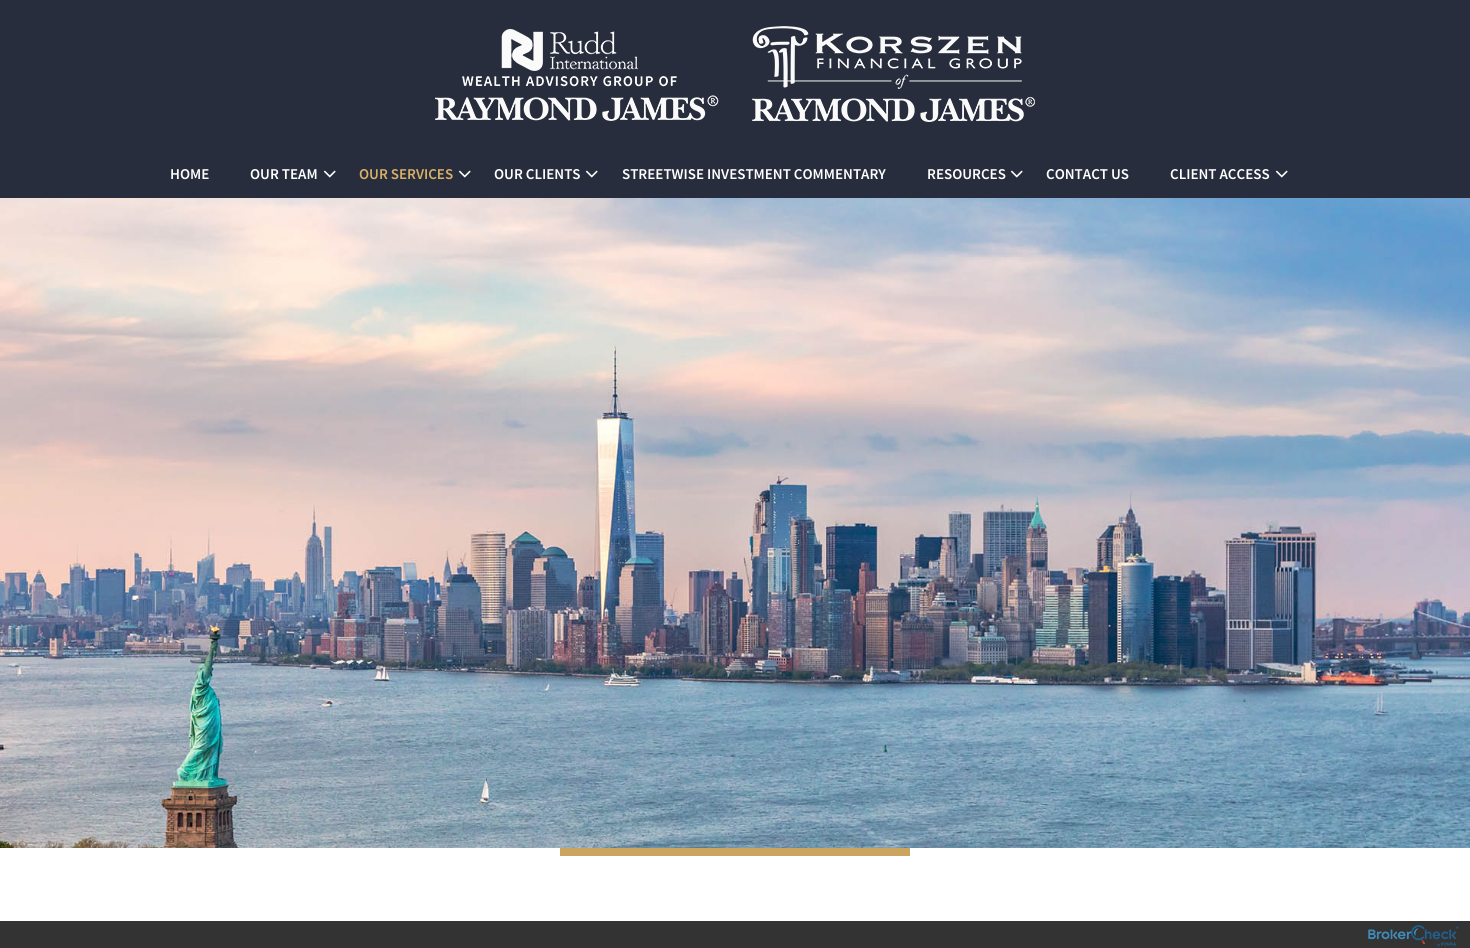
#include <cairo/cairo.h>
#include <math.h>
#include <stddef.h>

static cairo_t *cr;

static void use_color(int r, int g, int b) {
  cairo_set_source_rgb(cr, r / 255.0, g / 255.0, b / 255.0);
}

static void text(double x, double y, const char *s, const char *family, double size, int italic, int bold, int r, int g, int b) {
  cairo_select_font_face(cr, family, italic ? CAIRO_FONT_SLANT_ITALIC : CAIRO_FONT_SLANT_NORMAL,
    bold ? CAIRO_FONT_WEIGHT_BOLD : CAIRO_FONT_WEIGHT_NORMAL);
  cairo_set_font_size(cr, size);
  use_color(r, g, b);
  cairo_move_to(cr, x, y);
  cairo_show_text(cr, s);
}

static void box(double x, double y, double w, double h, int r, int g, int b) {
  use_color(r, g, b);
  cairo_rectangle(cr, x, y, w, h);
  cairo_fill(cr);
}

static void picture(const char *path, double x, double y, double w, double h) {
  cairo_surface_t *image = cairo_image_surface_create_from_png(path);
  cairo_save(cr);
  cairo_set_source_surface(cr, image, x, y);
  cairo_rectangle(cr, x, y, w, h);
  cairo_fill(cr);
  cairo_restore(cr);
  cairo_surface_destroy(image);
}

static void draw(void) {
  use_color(255, 255, 255);
  cairo_paint(cr);
  box(0, 0, 1470, 198, 39, 45, 60);
  picture("img_01.png", 435, 26, 600, 96);
  picture("img_02.png", 323, 170, 13, 8);
  picture("img_02.png", 458, 170, 13, 8);
  picture("img_02.png", 585, 170, 13, 8);
  picture("img_02.png", 1010, 170, 13, 8);
  picture("img_02.png", 1275, 170, 13, 8);
  picture("img_03.png", 0, 198, 1470, 650);
  box(560, 848, 350, 8, 201, 165, 96);
  cairo_set_source_rgba(cr, 0, 0, 0, 0.8);
  cairo_rectangle(cr, 0, 921, 1470, 27);
  cairo_fill(cr);
  picture("img_04.png", 1368, 925, 91, 22);
  text(170, 179, "HOME", "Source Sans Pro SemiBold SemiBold", 15, 0, 0, 255, 255, 255);
  text(250, 179, "OUR TEAM", "Source Sans Pro SemiBold SemiBold", 15, 0, 0, 255, 255, 255);
  text(359, 179, "OUR SERVICES", "Source Sans Pro SemiBold SemiBold", 15, 0, 0, 216, 177, 104);
  text(494, 179, "OUR CLIENTS", "Source Sans Pro SemiBold SemiBold", 15, 0, 0, 255, 255, 255);
  text(622, 179, "STREETWISE INVESTMENT COMMENTARY", "Source Sans Pro SemiBold SemiBold", 15, 0, 0, 255, 255, 255);
  text(927, 179, "RESOURCES", "Source Sans Pro SemiBold SemiBold", 15, 0, 0, 255, 255, 255);
  text(1046, 179, "CONTACT US", "Source Sans Pro SemiBold SemiBold", 15, 0, 0, 255, 255, 255);
  text(1170, 179, "CLIENT ACCESS", "Source Sans Pro SemiBold SemiBold", 15, 0, 0, 255, 255, 255);
}

int main(void) {
  cairo_surface_t *surface = cairo_image_surface_create(CAIRO_FORMAT_RGB24, 1470, 948);
  cr = cairo_create(surface);
  cairo_font_options_t *options = cairo_font_options_create();
  cairo_font_options_set_hint_metrics(options, CAIRO_HINT_METRICS_OFF);
  cairo_font_options_set_hint_style(options, CAIRO_HINT_STYLE_NONE);
  cairo_set_font_options(cr, options);
  cairo_set_miter_limit(cr, 4);
  draw();
  cairo_surface_write_to_png(surface, "out.png");
  cairo_font_options_destroy(options);
  cairo_destroy(cr);
  cairo_surface_destroy(surface);
  return 0;
}
